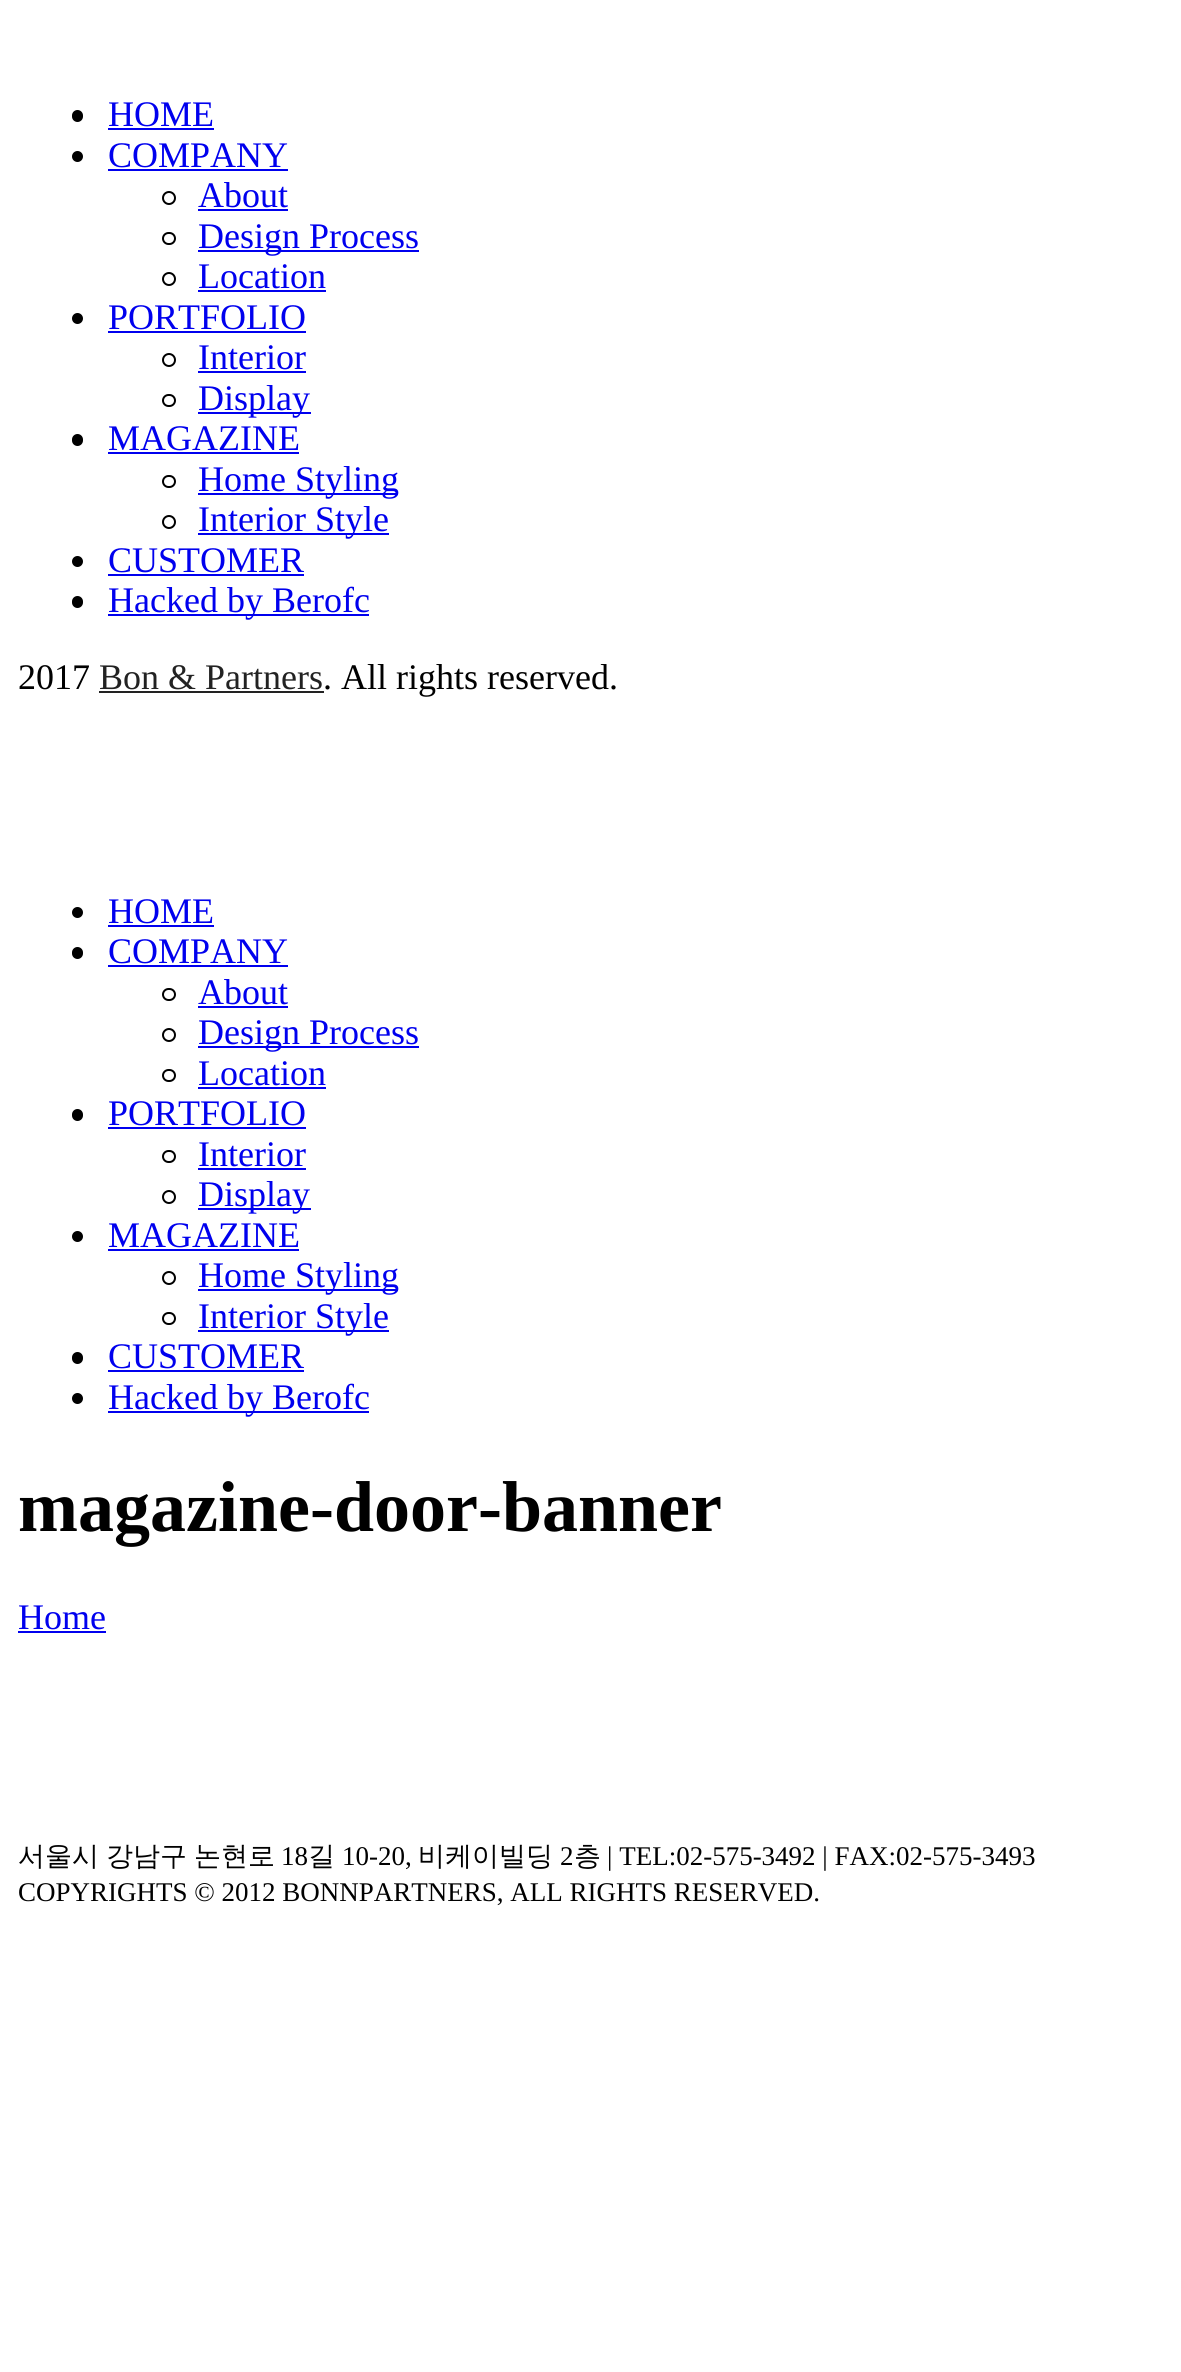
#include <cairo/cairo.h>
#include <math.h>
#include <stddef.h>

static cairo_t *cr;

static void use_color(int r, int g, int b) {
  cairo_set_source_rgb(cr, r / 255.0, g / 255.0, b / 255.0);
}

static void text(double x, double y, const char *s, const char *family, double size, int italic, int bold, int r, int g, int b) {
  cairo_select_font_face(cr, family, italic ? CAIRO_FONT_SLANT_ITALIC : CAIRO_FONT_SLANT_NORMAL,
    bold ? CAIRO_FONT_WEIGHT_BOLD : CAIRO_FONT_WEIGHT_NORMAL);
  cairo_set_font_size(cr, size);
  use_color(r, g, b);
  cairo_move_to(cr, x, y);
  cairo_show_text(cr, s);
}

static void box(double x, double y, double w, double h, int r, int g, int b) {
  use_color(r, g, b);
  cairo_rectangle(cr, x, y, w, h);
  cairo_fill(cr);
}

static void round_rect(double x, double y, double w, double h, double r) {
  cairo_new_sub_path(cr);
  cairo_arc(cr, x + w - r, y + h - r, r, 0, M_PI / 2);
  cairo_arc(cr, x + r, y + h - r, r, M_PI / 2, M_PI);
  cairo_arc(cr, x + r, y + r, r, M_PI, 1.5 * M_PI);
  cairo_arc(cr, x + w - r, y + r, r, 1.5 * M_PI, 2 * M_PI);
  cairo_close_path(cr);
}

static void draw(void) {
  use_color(255, 255, 255);
  cairo_paint(cr);
  use_color(0, 0, 0);
  round_rect(72, 110, 11, 12, 5.5);
  cairo_fill(cr);
  box(108, 128, 106, 2, 0, 0, 238);
  use_color(0, 0, 0);
  cairo_arc(cr, 77.5, 156.5, 5.5, 0, 2 * M_PI);
  cairo_fill(cr);
  box(108, 169, 180, 2, 0, 0, 238);
  cairo_arc(cr, 169, 198, 6, 0, 2 * M_PI);
  use_color(0, 0, 0);
  cairo_stroke(cr);
  box(198, 209, 90, 2, 0, 0, 238);
  round_rect(163, 233, 12, 11, 5.5);
  use_color(0, 0, 0);
  cairo_stroke(cr);
  box(198, 250, 221, 2, 0, 0, 238);
  cairo_arc(cr, 169, 279, 6, 0, 2 * M_PI);
  use_color(0, 0, 0);
  cairo_stroke(cr);
  box(198, 290, 128, 2, 0, 0, 238);
  use_color(0, 0, 0);
  cairo_arc(cr, 77.5, 318.5, 5.5, 0, 2 * M_PI);
  cairo_fill(cr);
  box(108, 331, 198, 2, 0, 0, 238);
  cairo_arc(cr, 169, 360, 6, 0, 2 * M_PI);
  use_color(0, 0, 0);
  cairo_stroke(cr);
  box(198, 371, 108, 2, 0, 0, 238);
  round_rect(163, 395, 12, 11, 5.5);
  use_color(0, 0, 0);
  cairo_stroke(cr);
  box(198, 412, 113, 2, 0, 0, 238);
  use_color(0, 0, 0);
  round_rect(72, 434, 11, 12, 5.5);
  cairo_fill(cr);
  box(108, 452, 191, 2, 0, 0, 238);
  round_rect(163, 476, 12, 11, 5.5);
  use_color(0, 0, 0);
  cairo_stroke(cr);
  box(198, 493, 200, 2, 0, 0, 238);
  cairo_arc(cr, 169, 522, 6, 0, 2 * M_PI);
  use_color(0, 0, 0);
  cairo_stroke(cr);
  box(198, 533, 191, 2, 0, 0, 238);
  use_color(0, 0, 0);
  cairo_arc(cr, 77.5, 561.5, 5.5, 0, 2 * M_PI);
  cairo_fill(cr);
  box(108, 574, 196, 2, 0, 0, 238);
  use_color(0, 0, 0);
  round_rect(72, 596, 11, 12, 5.5);
  cairo_fill(cr);
  box(108, 614, 261, 2, 0, 0, 238);
  box(99, 691, 225, 2, 34, 34, 34);
  use_color(0, 0, 0);
  cairo_arc(cr, 77.5, 912.5, 5.5, 0, 2 * M_PI);
  cairo_fill(cr);
  box(108, 925, 106, 2, 0, 0, 238);
  use_color(0, 0, 0);
  round_rect(72, 947, 11, 12, 5.5);
  cairo_fill(cr);
  box(108, 965, 180, 2, 0, 0, 238);
  round_rect(163, 989, 12, 11, 5.5);
  use_color(0, 0, 0);
  cairo_stroke(cr);
  box(198, 1006, 90, 2, 0, 0, 238);
  cairo_arc(cr, 169, 1035, 6, 0, 2 * M_PI);
  use_color(0, 0, 0);
  cairo_stroke(cr);
  box(198, 1046, 221, 2, 0, 0, 238);
  round_rect(163, 1070, 12, 11, 5.5);
  use_color(0, 0, 0);
  cairo_stroke(cr);
  box(198, 1087, 128, 2, 0, 0, 238);
  use_color(0, 0, 0);
  round_rect(72, 1109, 11, 12, 5.5);
  cairo_fill(cr);
  box(108, 1127, 198, 2, 0, 0, 238);
  round_rect(163, 1151, 12, 11, 5.5);
  use_color(0, 0, 0);
  cairo_stroke(cr);
  box(198, 1168, 108, 2, 0, 0, 238);
  cairo_arc(cr, 169, 1197, 6, 0, 2 * M_PI);
  use_color(0, 0, 0);
  cairo_stroke(cr);
  box(198, 1208, 113, 2, 0, 0, 238);
  use_color(0, 0, 0);
  cairo_arc(cr, 77.5, 1236.5, 5.5, 0, 2 * M_PI);
  cairo_fill(cr);
  box(108, 1249, 191, 2, 0, 0, 238);
  cairo_arc(cr, 169, 1278, 6, 0, 2 * M_PI);
  use_color(0, 0, 0);
  cairo_stroke(cr);
  box(198, 1289, 200, 2, 0, 0, 238);
  round_rect(163, 1313, 12, 11, 5.5);
  use_color(0, 0, 0);
  cairo_stroke(cr);
  box(198, 1330, 191, 2, 0, 0, 238);
  use_color(0, 0, 0);
  round_rect(72, 1352, 11, 12, 5.5);
  cairo_fill(cr);
  box(108, 1370, 196, 2, 0, 0, 238);
  use_color(0, 0, 0);
  cairo_arc(cr, 77.5, 1398.5, 5.5, 0, 2 * M_PI);
  cairo_fill(cr);
  box(108, 1411, 261, 2, 0, 0, 238);
  box(18, 1631, 88, 2, 0, 0, 238);
  text(108, 126, "HOME", "Liberation Serif", 36, 0, 0, 0, 0, 238);
  text(108, 167, "COMPANY", "Liberation Serif", 36, 0, 0, 0, 0, 238);
  text(198, 207, "About", "Liberation Serif", 36, 0, 0, 0, 0, 238);
  text(198, 248, "Design Process", "Liberation Serif", 36, 0, 0, 0, 0, 238);
  text(198, 288, "Location", "Liberation Serif", 36, 0, 0, 0, 0, 238);
  text(108, 329, "PORTFOLIO", "Liberation Serif", 36, 0, 0, 0, 0, 238);
  text(198, 369, "Interior", "Liberation Serif", 36, 0, 0, 0, 0, 238);
  text(198, 410, "Display", "Liberation Serif", 36, 0, 0, 0, 0, 238);
  text(108, 450, "MAGAZINE", "Liberation Serif", 36, 0, 0, 0, 0, 238);
  text(198, 491, "Home Styling", "Liberation Serif", 36, 0, 0, 0, 0, 238);
  text(198, 531, "Interior Style", "Liberation Serif", 36, 0, 0, 0, 0, 238);
  text(108, 572, "CUSTOMER", "Liberation Serif", 36, 0, 0, 0, 0, 238);
  text(108, 612, "Hacked by Berofc", "Liberation Serif", 36, 0, 0, 0, 0, 238);
  text(18, 689, "2017", "Liberation Serif", 36, 0, 0, 0, 0, 0);
  text(99, 689, "Bon & Partners", "Liberation Serif", 36, 0, 0, 34, 34, 34);
  text(323, 689, ". All rights reserved.", "Liberation Serif", 36, 0, 0, 0, 0, 0);
  text(108, 923, "HOME", "Liberation Serif", 36, 0, 0, 0, 0, 238);
  text(108, 963, "COMPANY", "Liberation Serif", 36, 0, 0, 0, 0, 238);
  text(198, 1004, "About", "Liberation Serif", 36, 0, 0, 0, 0, 238);
  text(198, 1044, "Design Process", "Liberation Serif", 36, 0, 0, 0, 0, 238);
  text(198, 1085, "Location", "Liberation Serif", 36, 0, 0, 0, 0, 238);
  text(108, 1125, "PORTFOLIO", "Liberation Serif", 36, 0, 0, 0, 0, 238);
  text(198, 1166, "Interior", "Liberation Serif", 36, 0, 0, 0, 0, 238);
  text(198, 1206, "Display", "Liberation Serif", 36, 0, 0, 0, 0, 238);
  text(108, 1247, "MAGAZINE", "Liberation Serif", 36, 0, 0, 0, 0, 238);
  text(198, 1287, "Home Styling", "Liberation Serif", 36, 0, 0, 0, 0, 238);
  text(198, 1328, "Interior Style", "Liberation Serif", 36, 0, 0, 0, 0, 238);
  text(108, 1368, "CUSTOMER", "Liberation Serif", 36, 0, 0, 0, 0, 238);
  text(108, 1409, "Hacked by Berofc", "Liberation Serif", 36, 0, 0, 0, 0, 238);
  text(18, 1531, "magazine-door-banner", "Liberation Serif", 72, 0, 1, 0, 0, 0);
  text(18, 1629, "Home", "Liberation Serif", 36, 0, 0, 0, 0, 238);
  text(18, 1865, "서울시", "WenQuanYi Zen Hei Medium", 27, 0, 0, 0, 0, 0);
  text(106, 1865, "강남구", "WenQuanYi Zen Hei Medium", 27, 0, 0, 0, 0, 0);
  text(194, 1865, "논현로", "WenQuanYi Zen Hei Medium", 27, 0, 0, 0, 0, 0);
  text(281, 1865, "18", "Liberation Serif", 27, 0, 0, 0, 0, 0);
  text(308, 1865, "길", "WenQuanYi Zen Hei Medium", 27, 0, 0, 0, 0, 0);
  text(342, 1865, "10-20,", "Liberation Serif", 27, 0, 0, 0, 0, 0);
  text(418, 1865, "비케이빌딩", "WenQuanYi Zen Hei Medium", 27, 0, 0, 0, 0, 0);
  text(560, 1865, "2", "Liberation Serif", 27, 0, 0, 0, 0, 0);
  text(574, 1865, "층", "WenQuanYi Zen Hei Medium", 27, 0, 0, 0, 0, 0);
  text(607, 1865, "| TEL:02-575-3492 | FAX:02-575-3493", "Liberation Serif", 27, 0, 0, 0, 0, 0);
  text(18, 1901, "COPYRIGHTS © 2012 BONNPARTNERS, ALL RIGHTS RESERVED.", "Liberation Serif", 27, 0, 0, 0, 0, 0);
}

int main(void) {
  cairo_surface_t *surface = cairo_image_surface_create(CAIRO_FORMAT_RGB24, 1181, 2372);
  cr = cairo_create(surface);
  cairo_font_options_t *options = cairo_font_options_create();
  cairo_font_options_set_hint_metrics(options, CAIRO_HINT_METRICS_OFF);
  cairo_font_options_set_hint_style(options, CAIRO_HINT_STYLE_NONE);
  cairo_set_font_options(cr, options);
  cairo_set_miter_limit(cr, 4);
  draw();
  cairo_surface_write_to_png(surface, "out.png");
  cairo_font_options_destroy(options);
  cairo_destroy(cr);
  cairo_surface_destroy(surface);
  return 0;
}
